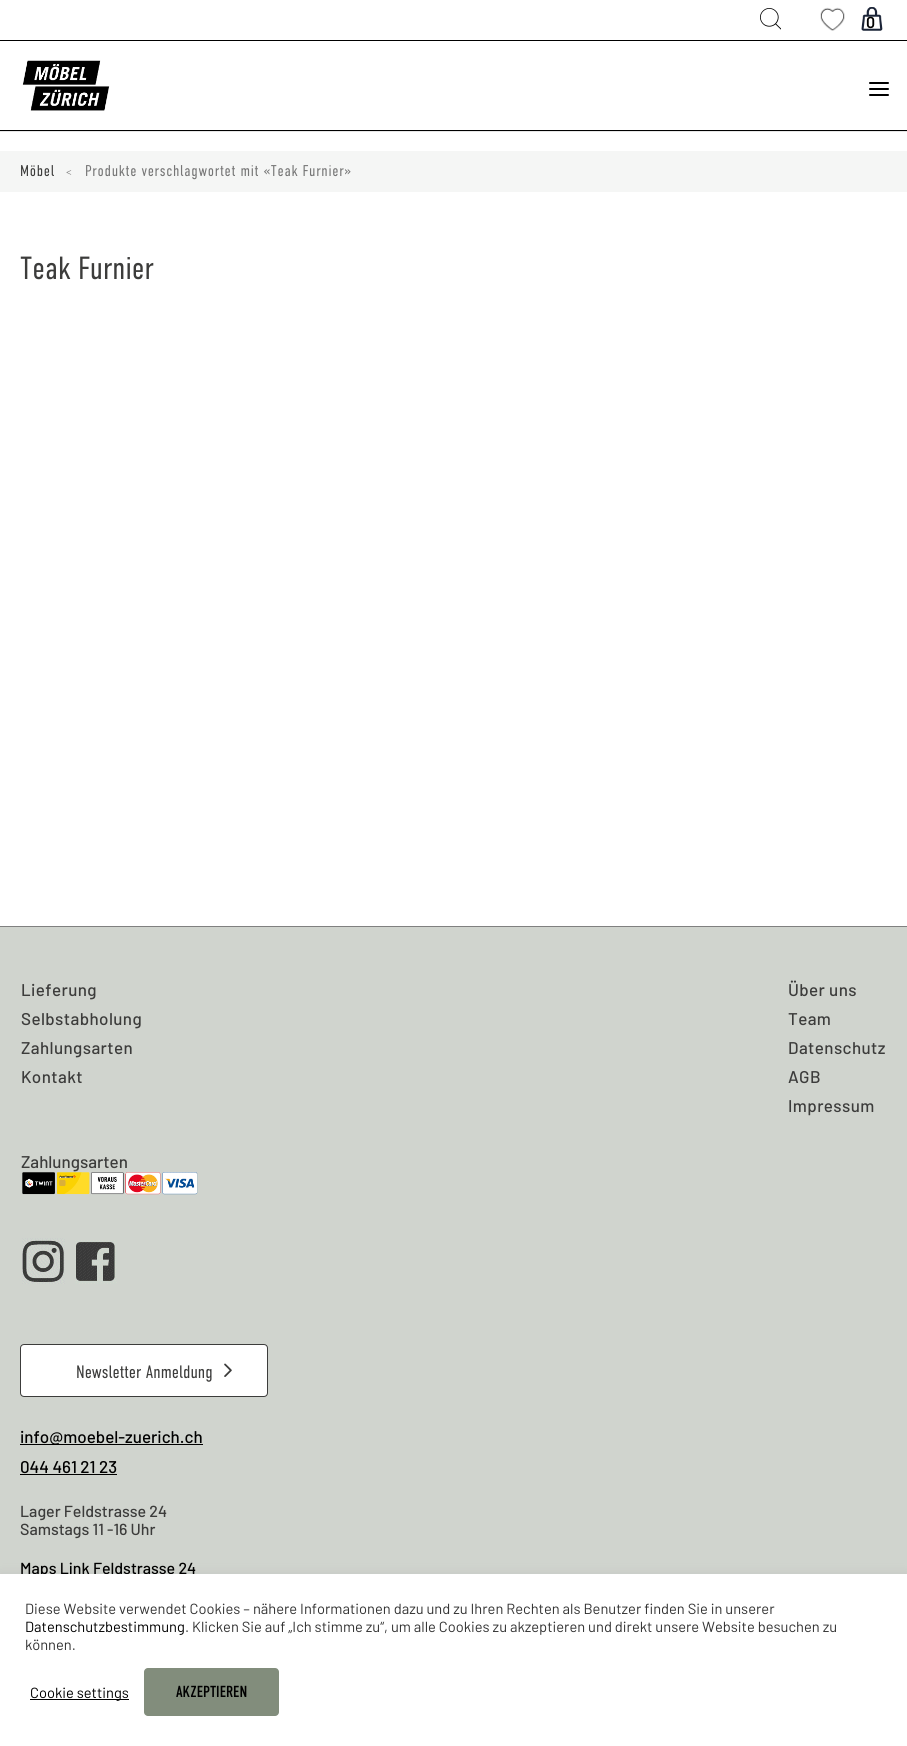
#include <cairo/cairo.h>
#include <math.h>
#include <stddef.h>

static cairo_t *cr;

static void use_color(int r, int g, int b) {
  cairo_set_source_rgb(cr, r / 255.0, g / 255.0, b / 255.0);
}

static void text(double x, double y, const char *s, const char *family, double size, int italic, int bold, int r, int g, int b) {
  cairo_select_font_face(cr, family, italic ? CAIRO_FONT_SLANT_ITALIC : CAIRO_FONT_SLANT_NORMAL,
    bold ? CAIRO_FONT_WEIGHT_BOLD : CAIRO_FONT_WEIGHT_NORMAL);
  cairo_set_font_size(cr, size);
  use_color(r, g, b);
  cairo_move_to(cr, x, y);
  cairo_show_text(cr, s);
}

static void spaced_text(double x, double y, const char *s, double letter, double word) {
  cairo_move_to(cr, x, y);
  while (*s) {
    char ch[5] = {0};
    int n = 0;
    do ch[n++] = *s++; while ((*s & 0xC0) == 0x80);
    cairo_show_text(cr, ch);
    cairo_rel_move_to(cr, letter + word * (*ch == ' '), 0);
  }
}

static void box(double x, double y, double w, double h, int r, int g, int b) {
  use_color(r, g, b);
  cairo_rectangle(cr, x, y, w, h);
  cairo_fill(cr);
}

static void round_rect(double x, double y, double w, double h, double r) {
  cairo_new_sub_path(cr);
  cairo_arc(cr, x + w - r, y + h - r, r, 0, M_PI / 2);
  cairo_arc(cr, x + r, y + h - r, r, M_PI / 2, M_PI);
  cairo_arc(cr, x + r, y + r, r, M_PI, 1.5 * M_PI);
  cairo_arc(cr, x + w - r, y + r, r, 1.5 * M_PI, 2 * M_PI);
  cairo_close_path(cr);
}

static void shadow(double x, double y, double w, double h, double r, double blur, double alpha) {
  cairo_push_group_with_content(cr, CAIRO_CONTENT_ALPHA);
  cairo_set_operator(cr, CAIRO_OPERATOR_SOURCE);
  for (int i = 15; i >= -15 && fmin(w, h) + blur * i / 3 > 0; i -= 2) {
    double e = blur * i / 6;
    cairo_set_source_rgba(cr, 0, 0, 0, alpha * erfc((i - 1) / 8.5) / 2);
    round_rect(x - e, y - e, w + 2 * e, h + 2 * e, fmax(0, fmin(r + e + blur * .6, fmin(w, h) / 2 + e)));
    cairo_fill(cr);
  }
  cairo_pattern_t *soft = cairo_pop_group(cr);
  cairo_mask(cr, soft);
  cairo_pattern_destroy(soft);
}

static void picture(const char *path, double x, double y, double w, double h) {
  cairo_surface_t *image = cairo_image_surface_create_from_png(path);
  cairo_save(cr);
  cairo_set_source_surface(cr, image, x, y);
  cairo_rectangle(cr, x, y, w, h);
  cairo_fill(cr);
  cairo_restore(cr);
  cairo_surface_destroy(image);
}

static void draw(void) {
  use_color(255, 255, 255);
  cairo_paint(cr);
  picture("img_01.png", 760, 8, 21, 22);
  picture("img_02.png", 820, 7, 25, 24);
  picture("img_03.png", 861, 7, 22, 24);
  box(0, 131, 907, 1, 230, 230, 230);
  box(0, 40, 907, 1, 0, 0, 0);
  box(0, 130, 907, 1, 0, 0, 0);
  picture("img_04.png", 22, 60, 88, 51);
  picture("img_05.png", 869, 82, 20, 14);
  box(0, 151, 907, 41, 245, 246, 245);
  box(0, 926, 907, 1, 128, 128, 128);
  box(0, 927, 907, 647, 208, 212, 206);
  picture("img_06.png", 22, 1172, 176, 23);
  picture("img_07.png", 22, 1238, 43, 46);
  picture("img_08.png", 75, 1240, 42, 44);
  use_color(255, 255, 255);
  round_rect(20.5, 1344.5, 247, 52, 3.5);
  cairo_fill_preserve(cr);
  use_color(60, 60, 59);
  cairo_set_line_width(cr, 1);
  cairo_stroke(cr);
  picture("img_09.png", 224, 1363, 8, 14);
  box(20, 1444, 183, 1, 0, 0, 0);
  box(20, 1474, 97, 1, 0, 0, 0);
  use_color(172, 171, 171);
  shadow(0, 1573, 907, 172, 0, 5, 0.3);
  text(866, 28, "0", "Barlow SemiBold", 16, 0, 0, 0, 0, 0);
  cairo_select_font_face(cr, "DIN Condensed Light", CAIRO_FONT_SLANT_NORMAL, CAIRO_FONT_WEIGHT_NORMAL);
  cairo_set_font_size(cr, 15.6);
  use_color(60, 60, 59);
  spaced_text(20, 176, "Möbel", 0.7, 0);
  cairo_set_font_size(cr, 12);
  use_color(118, 118, 118);
  spaced_text(66, 176, "<", 0.7, 0);
  cairo_set_font_size(cr, 15.6);
  spaced_text(85, 176, "Produkte verschlagwortet mit «Teak Furnier»", 0.7, 0);
  text(20, 279, "Teak Furnier", "DIN Condensed Light", 32, 0, 0, 60, 60, 59);
  cairo_select_font_face(cr, "Barlow Medium", CAIRO_FONT_SLANT_NORMAL, CAIRO_FONT_WEIGHT_NORMAL);
  cairo_set_font_size(cr, 17);
  spaced_text(21, 996, "Lieferung", 0.4, 0);
  spaced_text(21, 1025, "Selbstabholung", 0.4, 0);
  spaced_text(21, 1054, "Zahlungsarten", 0.4, 0);
  spaced_text(21, 1083, "Kontakt", 0.4, 0);
  spaced_text(788, 996, "Über uns", 0.4, 0);
  spaced_text(788, 1025, "Team", 0.4, 0);
  spaced_text(788, 1054, "Datenschutz", 0.4, 0);
  spaced_text(788, 1083, "AGB", 0.4, 0);
  spaced_text(788, 1112, "Impressum", 0.4, 0);
  text(21, 1168, "Zahlungsarten", "Barlow Medium", 17, 0, 0, 60, 60, 59);
  text(76, 1378, "Newsletter Anmeldung", "DIN Condensed Light", 18, 0, 0, 60, 60, 59);
  text(20, 1443, "info@moebel-zuerich.ch", "Barlow Medium", 17, 0, 0, 0, 0, 0);
  text(20, 1473, "044 461 21 23", "Barlow Medium", 17, 0, 0, 0, 0, 0);
  text(20, 1517, "Lager Feldstrasse 24", "Barlow Medium", 16, 0, 0, 60, 60, 59);
  text(20, 1535, "Samstags 11 -16 Uhr", "Barlow Medium", 16, 0, 0, 60, 60, 59);
  text(20, 1574, "Maps Link Feldstrasse 24", "Barlow Medium", 16, 0, 0, 0, 0, 0);
  box(0, 1574, 907, 172, 255, 255, 255);
  text(25, 1614, "Diese Website verwendet Cookies – nähere Informationen dazu und zu Ihren Rechten als Benutzer finden Sie in unserer", "Barlow", 14.67, 0, 0, 51, 51, 51);
  text(25, 1632, "Datenschutzbestimmung", "Barlow", 14.67, 0, 0, 0, 0, 0);
  text(185, 1632, ". Klicken Sie auf „Ich stimme zu“, um alle Cookies zu akzeptieren und direkt unsere Website besuchen zu", "Barlow", 14.67, 0, 0, 51, 51, 51);
  text(25, 1650, "können.", "Barlow", 14.67, 0, 0, 51, 51, 51);
  box(30, 1699, 99, 1, 0, 0, 0);
  text(30, 1698, "Cookie settings", "Barlow", 14.67, 0, 0, 0, 0, 0);
  use_color(130, 141, 124);
  round_rect(144, 1668, 135, 48, 4);
  cairo_fill(cr);
  text(176, 1697, "AKZEPTIEREN", "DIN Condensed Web", 16, 0, 0, 0, 0, 0);
}

int main(void) {
  cairo_surface_t *surface = cairo_image_surface_create(CAIRO_FORMAT_RGB24, 907, 1746);
  cr = cairo_create(surface);
  cairo_font_options_t *options = cairo_font_options_create();
  cairo_font_options_set_hint_metrics(options, CAIRO_HINT_METRICS_OFF);
  cairo_font_options_set_hint_style(options, CAIRO_HINT_STYLE_NONE);
  cairo_set_font_options(cr, options);
  cairo_set_miter_limit(cr, 4);
  draw();
  cairo_surface_write_to_png(surface, "out.png");
  cairo_font_options_destroy(options);
  cairo_destroy(cr);
  cairo_surface_destroy(surface);
  return 0;
}
